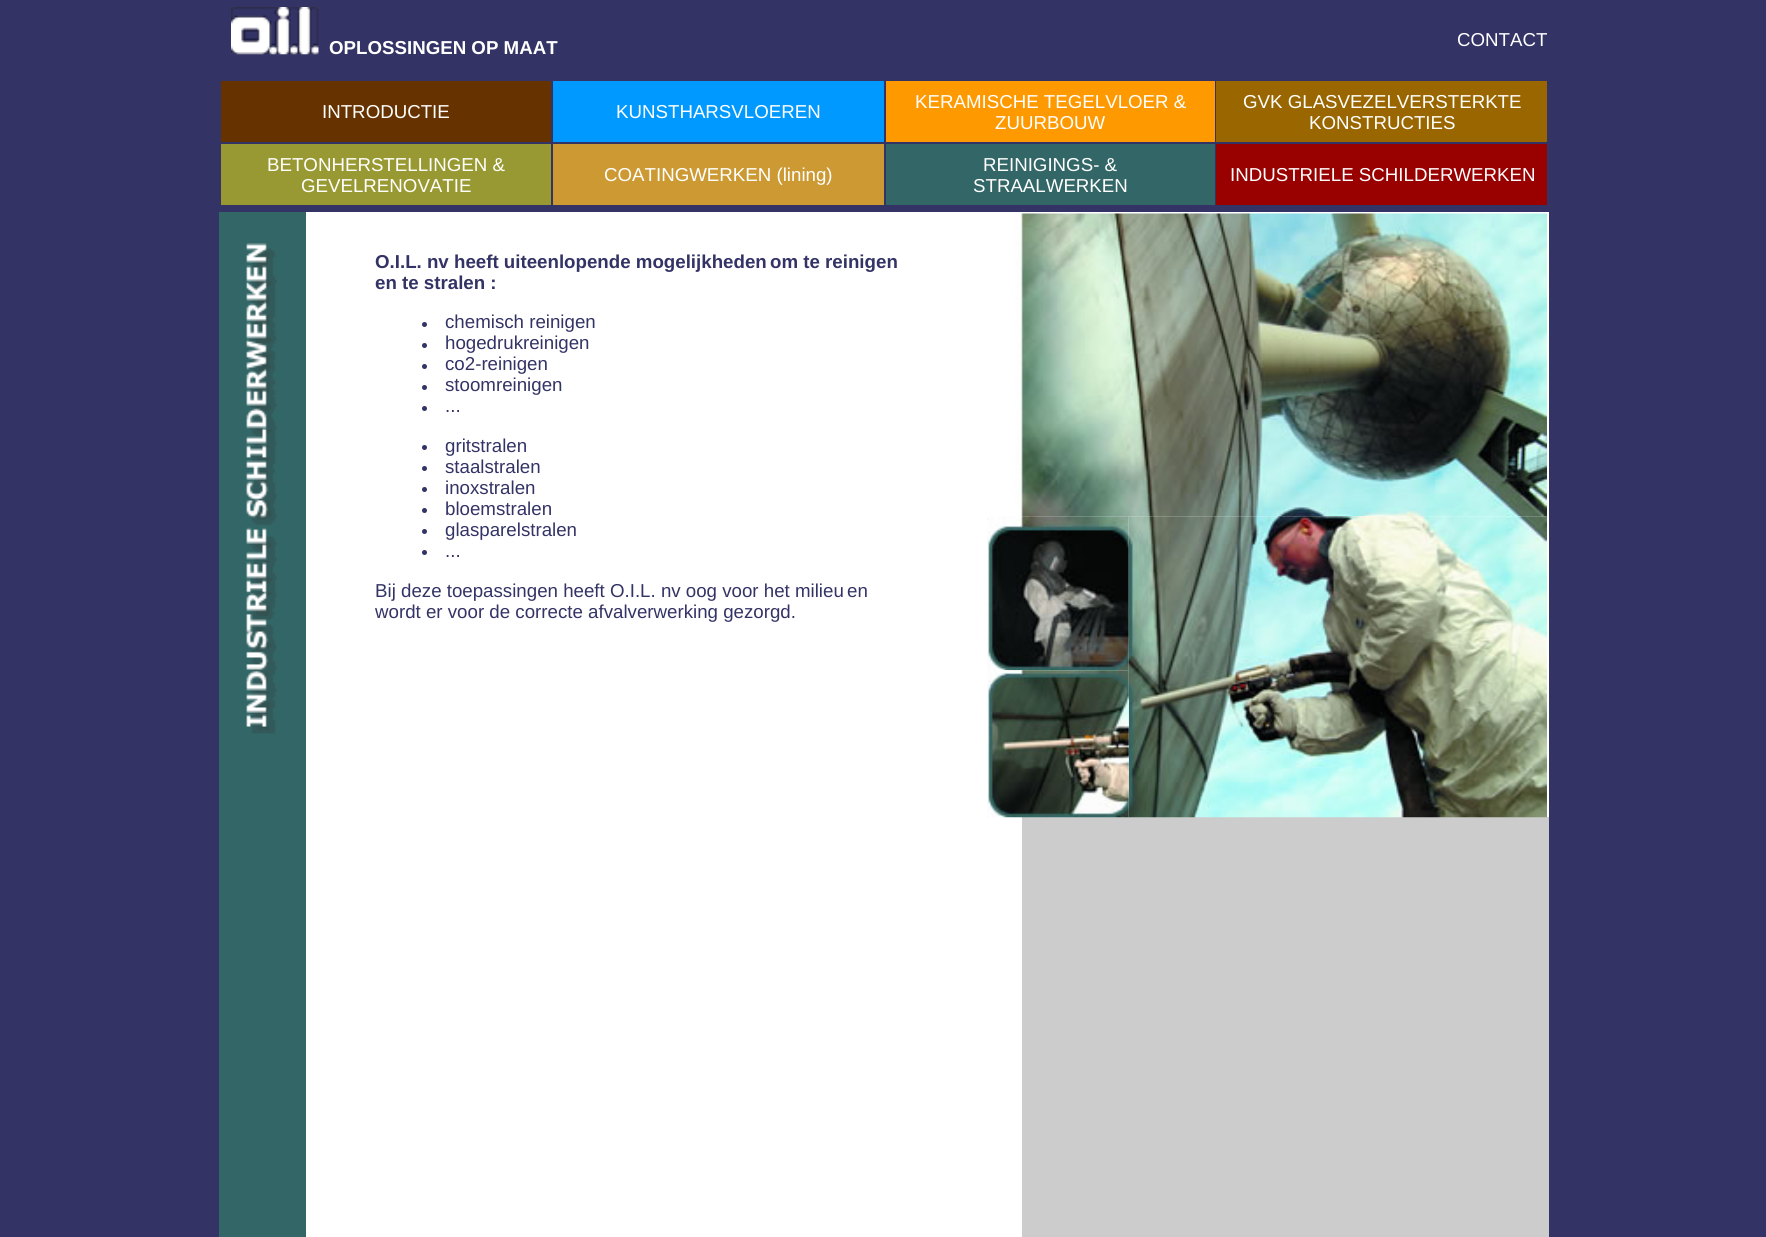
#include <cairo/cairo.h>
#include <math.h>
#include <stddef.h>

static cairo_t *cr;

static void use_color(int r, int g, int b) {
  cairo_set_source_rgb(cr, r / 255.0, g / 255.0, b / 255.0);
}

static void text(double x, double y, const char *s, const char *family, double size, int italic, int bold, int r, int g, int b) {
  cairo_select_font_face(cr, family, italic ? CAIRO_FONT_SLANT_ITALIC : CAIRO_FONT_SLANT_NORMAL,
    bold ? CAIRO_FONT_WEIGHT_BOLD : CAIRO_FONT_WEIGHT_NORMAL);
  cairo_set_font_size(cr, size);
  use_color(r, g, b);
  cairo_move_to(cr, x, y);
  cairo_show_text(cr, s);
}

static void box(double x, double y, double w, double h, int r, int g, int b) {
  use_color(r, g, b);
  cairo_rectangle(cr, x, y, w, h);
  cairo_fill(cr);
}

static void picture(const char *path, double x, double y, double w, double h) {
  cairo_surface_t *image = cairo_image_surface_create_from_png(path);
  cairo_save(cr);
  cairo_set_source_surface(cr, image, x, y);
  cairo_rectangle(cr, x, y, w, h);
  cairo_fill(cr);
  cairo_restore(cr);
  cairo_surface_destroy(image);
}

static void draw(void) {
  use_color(51, 51, 102);
  cairo_paint(cr);
  picture("img_01.png", 231, 7, 88, 48);
  box(221, 81, 330, 61, 102, 51, 0);
  box(553, 81, 331, 61, 0, 153, 255);
  box(886, 81, 329, 61, 255, 153, 0);
  box(1216, 81, 331, 61, 153, 102, 0);
  box(221, 144, 330, 61, 153, 153, 51);
  box(553, 144, 331, 61, 204, 153, 51);
  box(886, 144, 329, 61, 51, 102, 102);
  box(1216, 144, 331, 61, 153, 0, 0);
  box(306, 212, 1243, 1025, 255, 255, 255);
  box(219, 212, 87, 1025, 51, 102, 102);
  picture("img_02.png", 245, 243, 32, 491);
  use_color(51, 51, 102);
  cairo_arc(cr, 424.5, 324.5, 2.5, 0, 2 * M_PI);
  cairo_fill(cr);
  cairo_arc(cr, 424.5, 345.5, 2.5, 0, 2 * M_PI);
  cairo_fill(cr);
  cairo_arc(cr, 424.5, 366.5, 2.5, 0, 2 * M_PI);
  cairo_fill(cr);
  cairo_arc(cr, 424.5, 387.5, 2.5, 0, 2 * M_PI);
  cairo_fill(cr);
  cairo_arc(cr, 424.5, 408.5, 2.5, 0, 2 * M_PI);
  cairo_fill(cr);
  cairo_arc(cr, 424.5, 447.5, 2.5, 0, 2 * M_PI);
  cairo_fill(cr);
  cairo_arc(cr, 424.5, 468.5, 2.5, 0, 2 * M_PI);
  cairo_fill(cr);
  cairo_arc(cr, 424.5, 489.5, 2.5, 0, 2 * M_PI);
  cairo_fill(cr);
  cairo_arc(cr, 424.5, 510.5, 2.5, 0, 2 * M_PI);
  cairo_fill(cr);
  cairo_arc(cr, 424.5, 531.5, 2.5, 0, 2 * M_PI);
  cairo_fill(cr);
  cairo_arc(cr, 424.5, 552.5, 2.5, 0, 2 * M_PI);
  cairo_fill(cr);
  picture("img_03.png", 1015, 213, 532, 304);
  picture("img_04.png", 987, 516, 142, 155);
  box(1022, 817, 527, 420, 204, 204, 204);
  picture("img_05.png", 1128, 516, 419, 302);
  picture("img_06.png", 987, 670, 142, 148);
  text(329, 54, "OPLOSSINGEN OP MAAT", "Liberation Sans", 18.7, 0, 1, 255, 255, 255);
  text(1457, 46, "CONTACT", "Liberation Sans", 18.7, 0, 0, 255, 255, 255);
  text(322, 118, "INTRODUCTIE", "Liberation Sans", 18.7, 0, 0, 255, 255, 255);
  text(616, 118, "KUNSTHARSVLOEREN", "Liberation Sans", 18.7, 0, 0, 255, 255, 255);
  text(915, 108, "KERAMISCHE TEGELVLOER &", "Liberation Sans", 18.7, 0, 0, 255, 255, 255);
  text(995, 129, "ZUURBOUW", "Liberation Sans", 18.7, 0, 0, 255, 255, 255);
  text(1243, 108, "GVK GLASVEZELVERSTERKTE", "Liberation Sans", 18.7, 0, 0, 255, 255, 255);
  text(1309, 129, "KONSTRUCTIES", "Liberation Sans", 18.7, 0, 0, 255, 255, 255);
  text(267, 171, "BETONHERSTELLINGEN &", "Liberation Sans", 18.7, 0, 0, 255, 255, 255);
  text(301, 192, "GEVELRENOVATIE", "Liberation Sans", 18.7, 0, 0, 255, 255, 255);
  text(604, 181, "COATINGWERKEN (lining)", "Liberation Sans", 18.7, 0, 0, 255, 255, 255);
  text(983, 171, "REINIGINGS- &", "Liberation Sans", 18.7, 0, 0, 255, 255, 255);
  text(973, 192, "STRAALWERKEN", "Liberation Sans", 18.7, 0, 0, 255, 255, 255);
  text(1230, 181, "INDUSTRIELE SCHILDERWERKEN", "Liberation Sans", 18.7, 0, 0, 255, 255, 255);
  text(375, 268, "O.I.L. nv heeft uiteenlopende mogelijkheden", "Liberation Sans", 18.7, 0, 1, 51, 51, 102);
  text(770, 268, "om te reinigen", "Liberation Sans", 18.7, 0, 1, 51, 51, 102);
  text(375, 289, "en te stralen :", "Liberation Sans", 18.7, 0, 1, 51, 51, 102);
  text(445, 328, "chemisch reinigen", "Liberation Sans", 18.7, 0, 0, 51, 51, 102);
  text(445, 349, "hogedrukreinigen", "Liberation Sans", 18.7, 0, 0, 51, 51, 102);
  text(445, 370, "co2-reinigen", "Liberation Sans", 18.7, 0, 0, 51, 51, 102);
  text(445, 391, "stoomreinigen", "Liberation Sans", 18.7, 0, 0, 51, 51, 102);
  text(445, 412, "...", "Liberation Sans", 18.7, 0, 0, 51, 51, 102);
  text(445, 452, "gritstralen", "Liberation Sans", 18.7, 0, 0, 51, 51, 102);
  text(445, 473, "staalstralen", "Liberation Sans", 18.7, 0, 0, 51, 51, 102);
  text(445, 494, "inoxstralen", "Liberation Sans", 18.7, 0, 0, 51, 51, 102);
  text(445, 515, "bloemstralen", "Liberation Sans", 18.7, 0, 0, 51, 51, 102);
  text(445, 536, "glasparelstralen", "Liberation Sans", 18.7, 0, 0, 51, 51, 102);
  text(445, 557, "...", "Liberation Sans", 18.7, 0, 0, 51, 51, 102);
  text(375, 597, "Bij deze toepassingen heeft O.I.L. nv oog voor het milieu", "Liberation Sans", 18.7, 0, 0, 51, 51, 102);
  text(847, 597, "en", "Liberation Sans", 18.7, 0, 0, 51, 51, 102);
  text(375, 618, "wordt er voor de correcte afvalverwerking gezorgd.", "Liberation Sans", 18.7, 0, 0, 51, 51, 102);
}

int main(void) {
  cairo_surface_t *surface = cairo_image_surface_create(CAIRO_FORMAT_RGB24, 1766, 1237);
  cr = cairo_create(surface);
  cairo_font_options_t *options = cairo_font_options_create();
  cairo_font_options_set_hint_metrics(options, CAIRO_HINT_METRICS_OFF);
  cairo_font_options_set_hint_style(options, CAIRO_HINT_STYLE_NONE);
  cairo_set_font_options(cr, options);
  cairo_set_miter_limit(cr, 4);
  draw();
  cairo_surface_write_to_png(surface, "out.png");
  cairo_font_options_destroy(options);
  cairo_destroy(cr);
  cairo_surface_destroy(surface);
  return 0;
}
